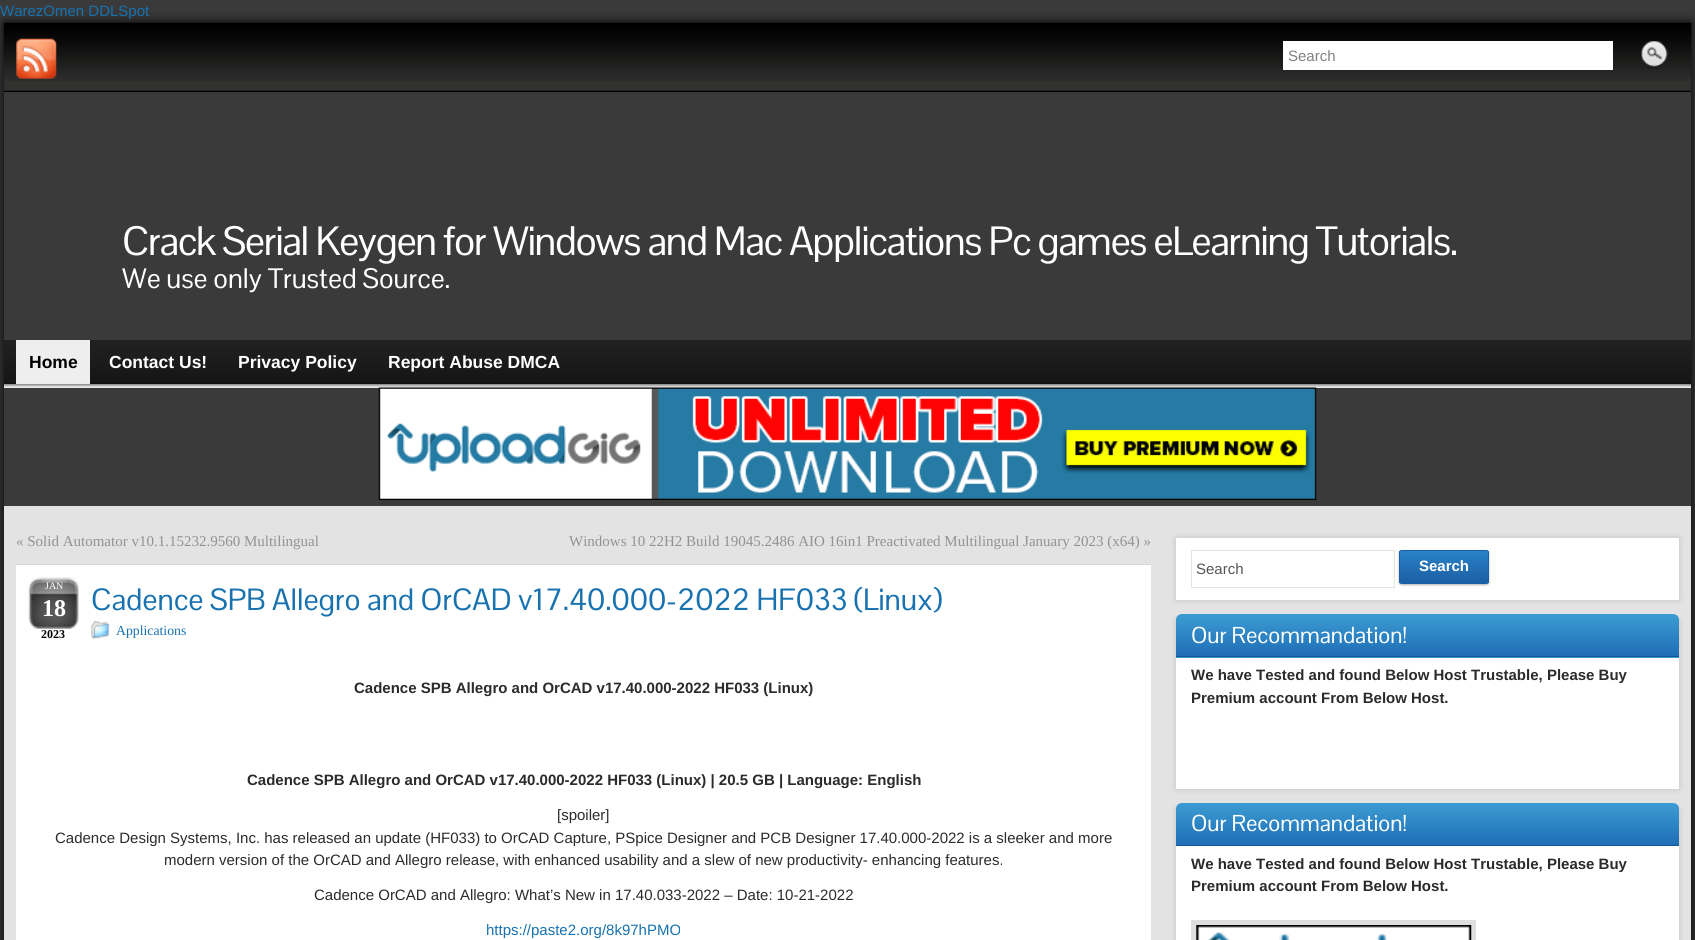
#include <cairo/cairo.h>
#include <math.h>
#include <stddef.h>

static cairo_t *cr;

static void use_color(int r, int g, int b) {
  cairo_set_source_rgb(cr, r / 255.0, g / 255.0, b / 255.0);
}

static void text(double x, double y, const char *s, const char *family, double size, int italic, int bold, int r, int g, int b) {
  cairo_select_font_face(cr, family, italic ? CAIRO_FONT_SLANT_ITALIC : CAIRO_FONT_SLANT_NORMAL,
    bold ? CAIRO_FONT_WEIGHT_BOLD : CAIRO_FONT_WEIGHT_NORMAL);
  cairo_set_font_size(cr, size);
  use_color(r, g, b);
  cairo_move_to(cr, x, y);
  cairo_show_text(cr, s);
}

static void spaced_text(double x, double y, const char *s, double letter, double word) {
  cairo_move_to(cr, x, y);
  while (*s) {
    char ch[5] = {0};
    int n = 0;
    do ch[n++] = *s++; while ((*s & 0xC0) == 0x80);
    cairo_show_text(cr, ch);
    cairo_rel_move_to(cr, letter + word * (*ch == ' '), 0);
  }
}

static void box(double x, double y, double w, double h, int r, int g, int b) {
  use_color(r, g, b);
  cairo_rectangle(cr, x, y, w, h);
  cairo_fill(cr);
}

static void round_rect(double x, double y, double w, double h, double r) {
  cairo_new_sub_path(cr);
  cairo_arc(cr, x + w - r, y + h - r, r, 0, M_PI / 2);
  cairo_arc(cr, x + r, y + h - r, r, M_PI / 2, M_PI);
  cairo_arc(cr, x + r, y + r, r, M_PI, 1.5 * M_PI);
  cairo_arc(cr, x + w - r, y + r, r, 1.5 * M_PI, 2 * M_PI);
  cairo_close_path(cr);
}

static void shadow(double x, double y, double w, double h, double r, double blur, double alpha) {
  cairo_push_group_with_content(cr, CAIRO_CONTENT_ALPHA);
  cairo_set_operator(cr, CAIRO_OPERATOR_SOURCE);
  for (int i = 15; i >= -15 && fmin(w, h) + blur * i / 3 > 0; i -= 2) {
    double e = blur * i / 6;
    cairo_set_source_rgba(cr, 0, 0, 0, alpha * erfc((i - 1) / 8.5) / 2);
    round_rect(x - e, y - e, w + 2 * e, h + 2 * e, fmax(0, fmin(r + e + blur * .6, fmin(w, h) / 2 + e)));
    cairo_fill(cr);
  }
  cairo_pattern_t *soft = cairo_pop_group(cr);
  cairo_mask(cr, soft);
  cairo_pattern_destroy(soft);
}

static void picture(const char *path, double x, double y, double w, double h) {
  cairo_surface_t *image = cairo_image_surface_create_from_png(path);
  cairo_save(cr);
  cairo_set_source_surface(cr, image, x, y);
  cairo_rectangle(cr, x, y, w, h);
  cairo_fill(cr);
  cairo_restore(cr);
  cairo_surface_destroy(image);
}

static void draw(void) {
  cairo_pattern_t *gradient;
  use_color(58, 58, 58);
  cairo_paint(cr);
  cairo_save(cr);
  cairo_set_fill_rule(cr, CAIRO_FILL_RULE_EVEN_ODD);
  cairo_new_path(cr);
  cairo_move_to(cr, 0, 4);
  cairo_line_to(cr, 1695, 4);
  cairo_line_to(cr, 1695, 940);
  cairo_line_to(cr, 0, 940);
  cairo_close_path(cr);
  cairo_move_to(cr, 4, 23);
  cairo_line_to(cr, 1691, 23);
  cairo_line_to(cr, 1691, 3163);
  cairo_line_to(cr, 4, 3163);
  cairo_close_path(cr);
  cairo_clip(cr);
  use_color(0, 0, 0);
  shadow(4, 23, 1687, 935, 0, 6, 1);
  cairo_restore(cr);
  box(4, 81, 1687, 9, 49, 49, 48);
  picture("img_01.png", 3, 22, 1689, 59);
  box(4, 90, 1687, 1, 34, 34, 34);
  picture("img_02.png", 16, 38, 41, 41);
  box(1283, 41, 330, 29, 255, 255, 255);
  picture("img_03.png", 1641, 41, 27, 28);
  box(4, 91, 1687, 1, 0, 0, 0);
  box(4, 340, 1687, 44, 16, 16, 16);
  picture("img_04.png", 3, 340, 1689, 43);
  box(16, 340, 74, 44, 238, 238, 238);
  box(17, 383, 73, 1, 234, 234, 234);
  box(4, 384, 1687, 4, 238, 238, 238);
  picture("img_05.png", 4, 384, 1687, 3);
  picture("img_06.png", 378, 387, 939, 113);
  box(4, 506, 1687, 434, 227, 227, 227);
  box(16, 565, 1135, 375, 255, 255, 255);
  box(16, 564, 1135, 1, 216, 216, 216);
  picture("img_07.png", 28, 577, 51, 52);
  picture("img_08.png", 91, 621, 19, 18);
  use_color(0, 0, 0);
  shadow(1176, 538, 503, 62, 0, 3, 0.15);
  box(1176, 538, 503, 62, 255, 255, 255);
  cairo_rectangle(cr, 1191.5, 550.5, 203, 37);
  use_color(227, 227, 227);
  cairo_set_line_width(cr, 1);
  cairo_stroke(cr);
  use_color(0, 0, 0);
  shadow(1399, 551, 90, 34, 2.5, 1, 0.3);
  cairo_save(cr);
  round_rect(1399, 550, 90, 34, 2.5);
  cairo_clip(cr);
  gradient = cairo_pattern_create_linear(1444, 551, 1444, 583);
  cairo_pattern_add_color_stop_rgba(gradient, 0, 0.161, 0.51, 0.773, 1);
  cairo_pattern_add_color_stop_rgba(gradient, 1, 0.11, 0.373, 0.647, 1);
  cairo_set_source(cr, gradient);
  cairo_pattern_destroy(gradient);
  cairo_rectangle(cr, 1399, 551, 90, 32);
  cairo_fill(cr);
  cairo_restore(cr);
  round_rect(1399.5, 550.5, 89, 33, 2);
  use_color(28, 95, 165);
  cairo_stroke(cr);
  use_color(0, 0, 0);
  shadow(1176, 620, 503, 169, 0, 3, 0.15);
  box(1176, 658, 503, 131, 255, 255, 255);
  gradient = cairo_pattern_create_linear(1428, 614, 1428, 656);
  cairo_pattern_add_color_stop_rgba(gradient, 0, 0.235, 0.612, 0.824, 1);
  cairo_pattern_add_color_stop_rgba(gradient, 1, 0.122, 0.431, 0.714, 1);
  cairo_set_source(cr, gradient);
  cairo_pattern_destroy(gradient);
  cairo_new_path(cr);
  cairo_move_to(cr, 1182, 614);
  cairo_line_to(cr, 1673, 614);
  cairo_curve_to(cr, 1676.5, 614, 1679, 616.5, 1679, 620);
  cairo_line_to(cr, 1679, 656);
  cairo_line_to(cr, 1176, 656);
  cairo_line_to(cr, 1176, 620);
  cairo_curve_to(cr, 1176, 616.5, 1178.5, 614, 1182, 614);
  cairo_close_path(cr);
  cairo_fill(cr);
  gradient = cairo_pattern_create_linear(1428, 656, 1428, 699);
  cairo_pattern_add_color_stop_rgba(gradient, 0, 0.235, 0.612, 0.824, 1);
  cairo_pattern_add_color_stop_rgba(gradient, 1, 0.122, 0.431, 0.714, 1);
  cairo_set_source(cr, gradient);
  cairo_pattern_destroy(gradient);
  cairo_rectangle(cr, 1176, 657, 503, 1);
  cairo_fill(cr);
  box(1176, 656, 503, 1, 25, 83, 146);
  use_color(0, 0, 0);
  shadow(1176, 809, 503, 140, 0, 3, 0.15);
  box(1176, 846, 503, 94, 255, 255, 255);
  gradient = cairo_pattern_create_linear(1428, 803, 1428, 845);
  cairo_pattern_add_color_stop_rgba(gradient, 0, 0.235, 0.612, 0.824, 1);
  cairo_pattern_add_color_stop_rgba(gradient, 1, 0.122, 0.431, 0.714, 1);
  cairo_set_source(cr, gradient);
  cairo_pattern_destroy(gradient);
  cairo_new_path(cr);
  cairo_move_to(cr, 1182, 803);
  cairo_line_to(cr, 1673, 803);
  cairo_curve_to(cr, 1676.5, 803, 1679, 805.5, 1679, 809);
  cairo_line_to(cr, 1679, 845);
  cairo_line_to(cr, 1176, 845);
  cairo_line_to(cr, 1176, 809);
  cairo_curve_to(cr, 1176, 805.5, 1178.5, 803, 1182, 803);
  cairo_close_path(cr);
  cairo_fill(cr);
  box(1176, 845, 503, 1, 25, 83, 146);
  cairo_rectangle(cr, 1193.5, 922.5, 280, 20);
  use_color(222, 222, 222);
  cairo_set_line_width(cr, 5);
  cairo_stroke(cr);
  picture("img_09.png", 1196, 925, 276, 15);
  text(0, 16, "WarezOmen DDLSpot", "Liberation Sans", 15, 0, 0, 23, 114, 175);
  text(1288, 61, "Search", "Liberation Sans", 15, 0, 0, 128, 128, 128);
  cairo_select_font_face(cr, "Pontano Sans", CAIRO_FONT_SLANT_NORMAL, CAIRO_FONT_WEIGHT_NORMAL);
  cairo_set_font_size(cr, 40);
  use_color(255, 255, 255);
  spaced_text(122, 255, "Crack Serial Keygen for Windows and Mac Applications Pc games eLearning Tutorials.", -1.25, 0);
  text(122, 288, "We use only Trusted Source.", "Pontano Sans", 27.5, 0, 0, 255, 255, 255);
  text(29, 368, "Home", "Liberation Sans", 17.5, 0, 1, 0, 0, 0);
  text(109, 368, "Contact Us!", "Liberation Sans", 17.5, 0, 1, 255, 255, 255);
  text(238, 368, "Privacy Policy", "Liberation Sans", 17.5, 0, 1, 255, 255, 255);
  text(388, 368, "Report Abuse DMCA", "Liberation Sans", 17.5, 0, 1, 255, 255, 255);
  text(16, 546, "« Solid Automator v10.1.15232.9560 Multilingual", "Liberation Serif", 15, 0, 0, 146, 146, 146);
  text(569, 546, "Windows 10 22H2 Build 19045.2486 AIO 16in1 Preactivated Multilingual January 2023 (x64) »", "Liberation Serif", 15, 0, 0, 146, 146, 146);
  text(45, 589, "JAN", "Liberation Serif", 10, 0, 0, 255, 255, 255);
  text(42, 616, "18", "Liberation Serif", 24, 0, 1, 255, 255, 255);
  text(41, 638, "2023", "Liberation Serif", 12, 0, 1, 0, 0, 0);
  text(91, 610, "Cadence SPB Allegro and OrCAD v17.40.000-2022 HF033 (Linux)", "Pontano Sans", 30, 0, 0, 23, 114, 175);
  text(116, 635, "Applications", "Liberation Serif", 13.75, 0, 0, 23, 114, 175);
  text(354, 693, "Cadence SPB Allegro and OrCAD v17.40.000-2022 HF033 (Linux)", "Liberation Sans", 15, 0, 1, 44, 43, 43);
  text(247, 785, "Cadence SPB Allegro and OrCAD v17.40.000-2022 HF033 (Linux) | 20.5 GB | Language: English", "Liberation Sans", 15, 0, 1, 44, 43, 43);
  text(557, 820, "[spoiler]", "Liberation Sans", 15, 0, 0, 44, 43, 43);
  text(55, 843, "Cadence Design Systems, Inc. has released an update (HF033) to OrCAD Capture, PSpice Designer and PCB Designer 17.40.000-2022 is a sleeker and more", "Liberation Sans", 15, 0, 0, 44, 43, 43);
  text(164, 865, "modern version of the OrCAD and Allegro release, with enhanced usability and a slew of new productivity- enhancing features.", "Liberation Sans", 15, 0, 0, 44, 43, 43);
  text(314, 900, "Cadence OrCAD and Allegro: What’s New in 17.40.033-2022 – Date: 10-21-2022", "Liberation Sans", 15, 0, 0, 44, 43, 43);
  text(486, 935, "https://paste2.org/8k97hPMO", "Liberation Sans", 15, 0, 0, 23, 114, 175);
  text(1196, 574, "Search", "Liberation Sans", 15, 0, 0, 85, 85, 85);
  text(1419, 571, "Search", "Liberation Sans", 15, 0, 1, 255, 255, 255);
  text(1191, 643, "Our Recommandation!", "Pontano Sans", 22.5, 0, 0, 255, 255, 255);
  text(1191, 680, "We have Tested and found Below Host Trustable, Please Buy", "Liberation Sans", 15, 0, 1, 44, 43, 43);
  text(1191, 703, "Premium account From Below Host.", "Liberation Sans", 15, 0, 1, 44, 43, 43);
  text(1191, 831, "Our Recommandation!", "Pontano Sans", 22.5, 0, 0, 255, 255, 255);
  text(1191, 869, "We have Tested and found Below Host Trustable, Please Buy", "Liberation Sans", 15, 0, 1, 44, 43, 43);
  text(1191, 891, "Premium account From Below Host.", "Liberation Sans", 15, 0, 1, 44, 43, 43);
}

int main(void) {
  cairo_surface_t *surface = cairo_image_surface_create(CAIRO_FORMAT_RGB24, 1695, 940);
  cr = cairo_create(surface);
  cairo_font_options_t *options = cairo_font_options_create();
  cairo_font_options_set_hint_metrics(options, CAIRO_HINT_METRICS_OFF);
  cairo_font_options_set_hint_style(options, CAIRO_HINT_STYLE_NONE);
  cairo_set_font_options(cr, options);
  cairo_set_miter_limit(cr, 4);
  draw();
  cairo_surface_write_to_png(surface, "out.png");
  cairo_font_options_destroy(options);
  cairo_destroy(cr);
  cairo_surface_destroy(surface);
  return 0;
}
